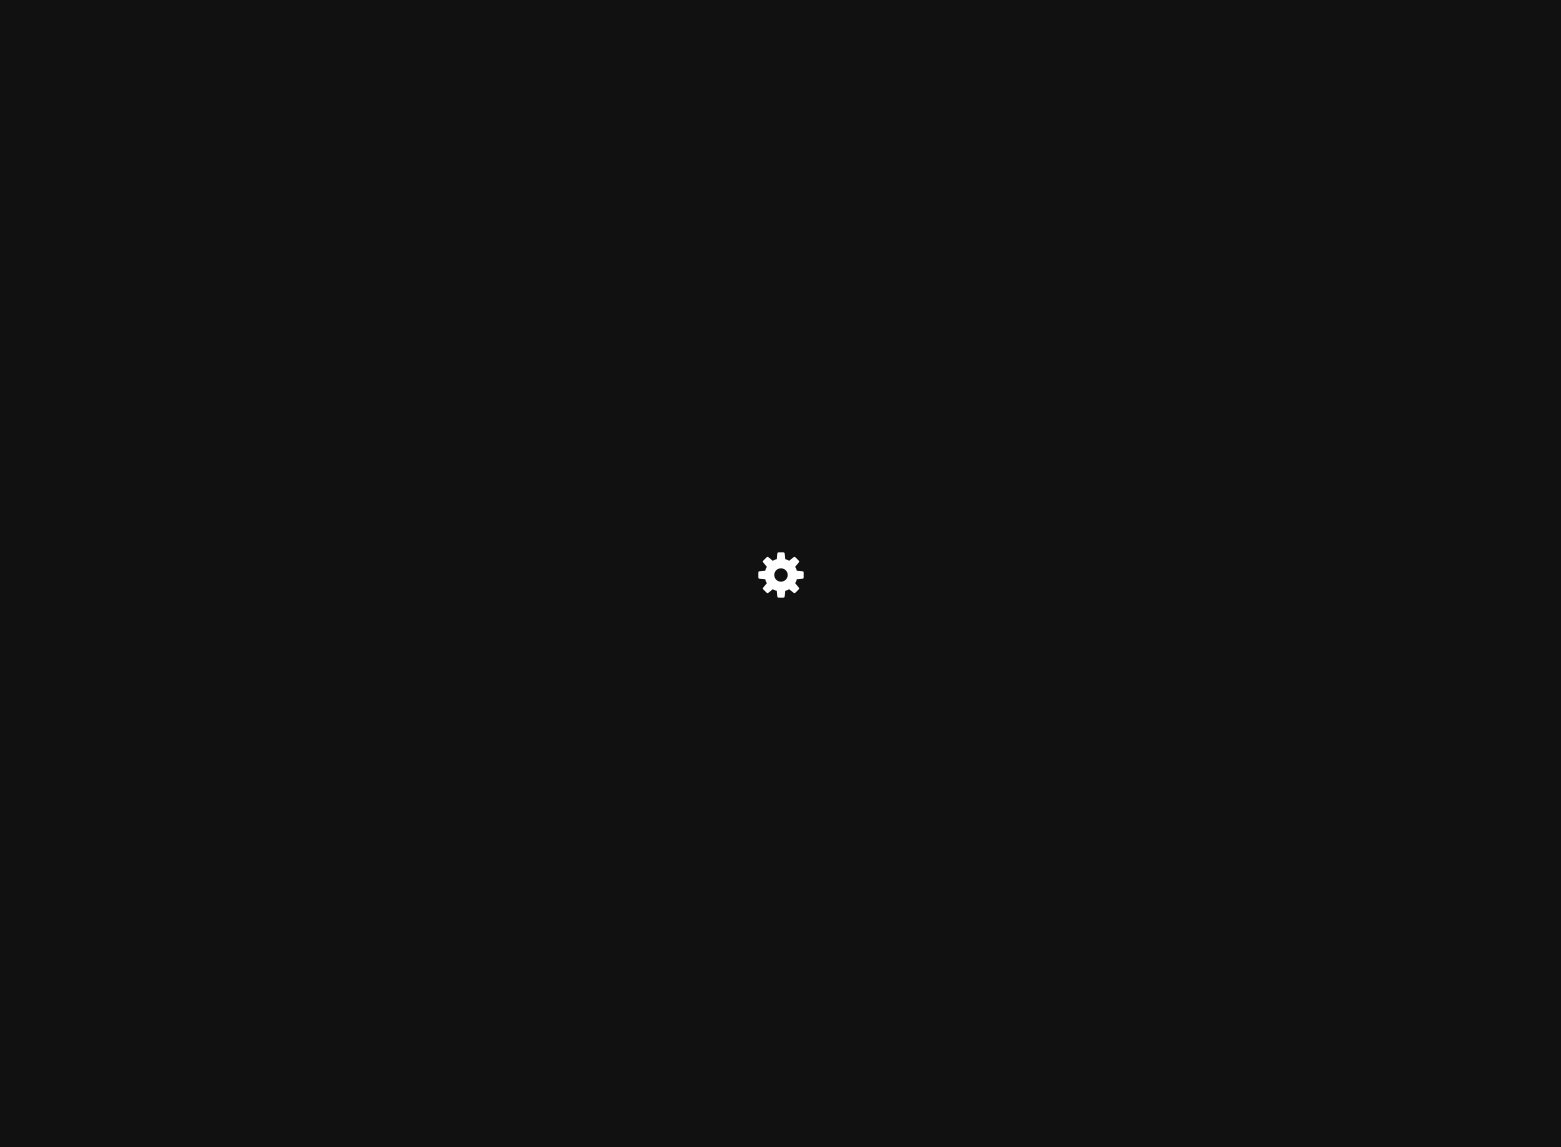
#include <cairo/cairo.h>
#include <math.h>
#include <stddef.h>

static cairo_t *cr;

static void use_color(int r, int g, int b) {
  cairo_set_source_rgb(cr, r / 255.0, g / 255.0, b / 255.0);
}

static void picture(const char *path, double x, double y, double w, double h) {
  cairo_surface_t *image = cairo_image_surface_create_from_png(path);
  cairo_save(cr);
  cairo_set_source_surface(cr, image, x, y);
  cairo_rectangle(cr, x, y, w, h);
  cairo_fill(cr);
  cairo_restore(cr);
  cairo_surface_destroy(image);
}

static void draw(void) {
  use_color(17, 17, 17);
  cairo_paint(cr);
  picture("img_01.png", 758, 552, 46, 46);
}

int main(void) {
  cairo_surface_t *surface = cairo_image_surface_create(CAIRO_FORMAT_RGB24, 1561, 1147);
  cr = cairo_create(surface);
  cairo_font_options_t *options = cairo_font_options_create();
  cairo_font_options_set_hint_metrics(options, CAIRO_HINT_METRICS_OFF);
  cairo_font_options_set_hint_style(options, CAIRO_HINT_STYLE_NONE);
  cairo_set_font_options(cr, options);
  cairo_set_miter_limit(cr, 4);
  draw();
  cairo_surface_write_to_png(surface, "out.png");
  cairo_font_options_destroy(options);
  cairo_destroy(cr);
  cairo_surface_destroy(surface);
  return 0;
}
